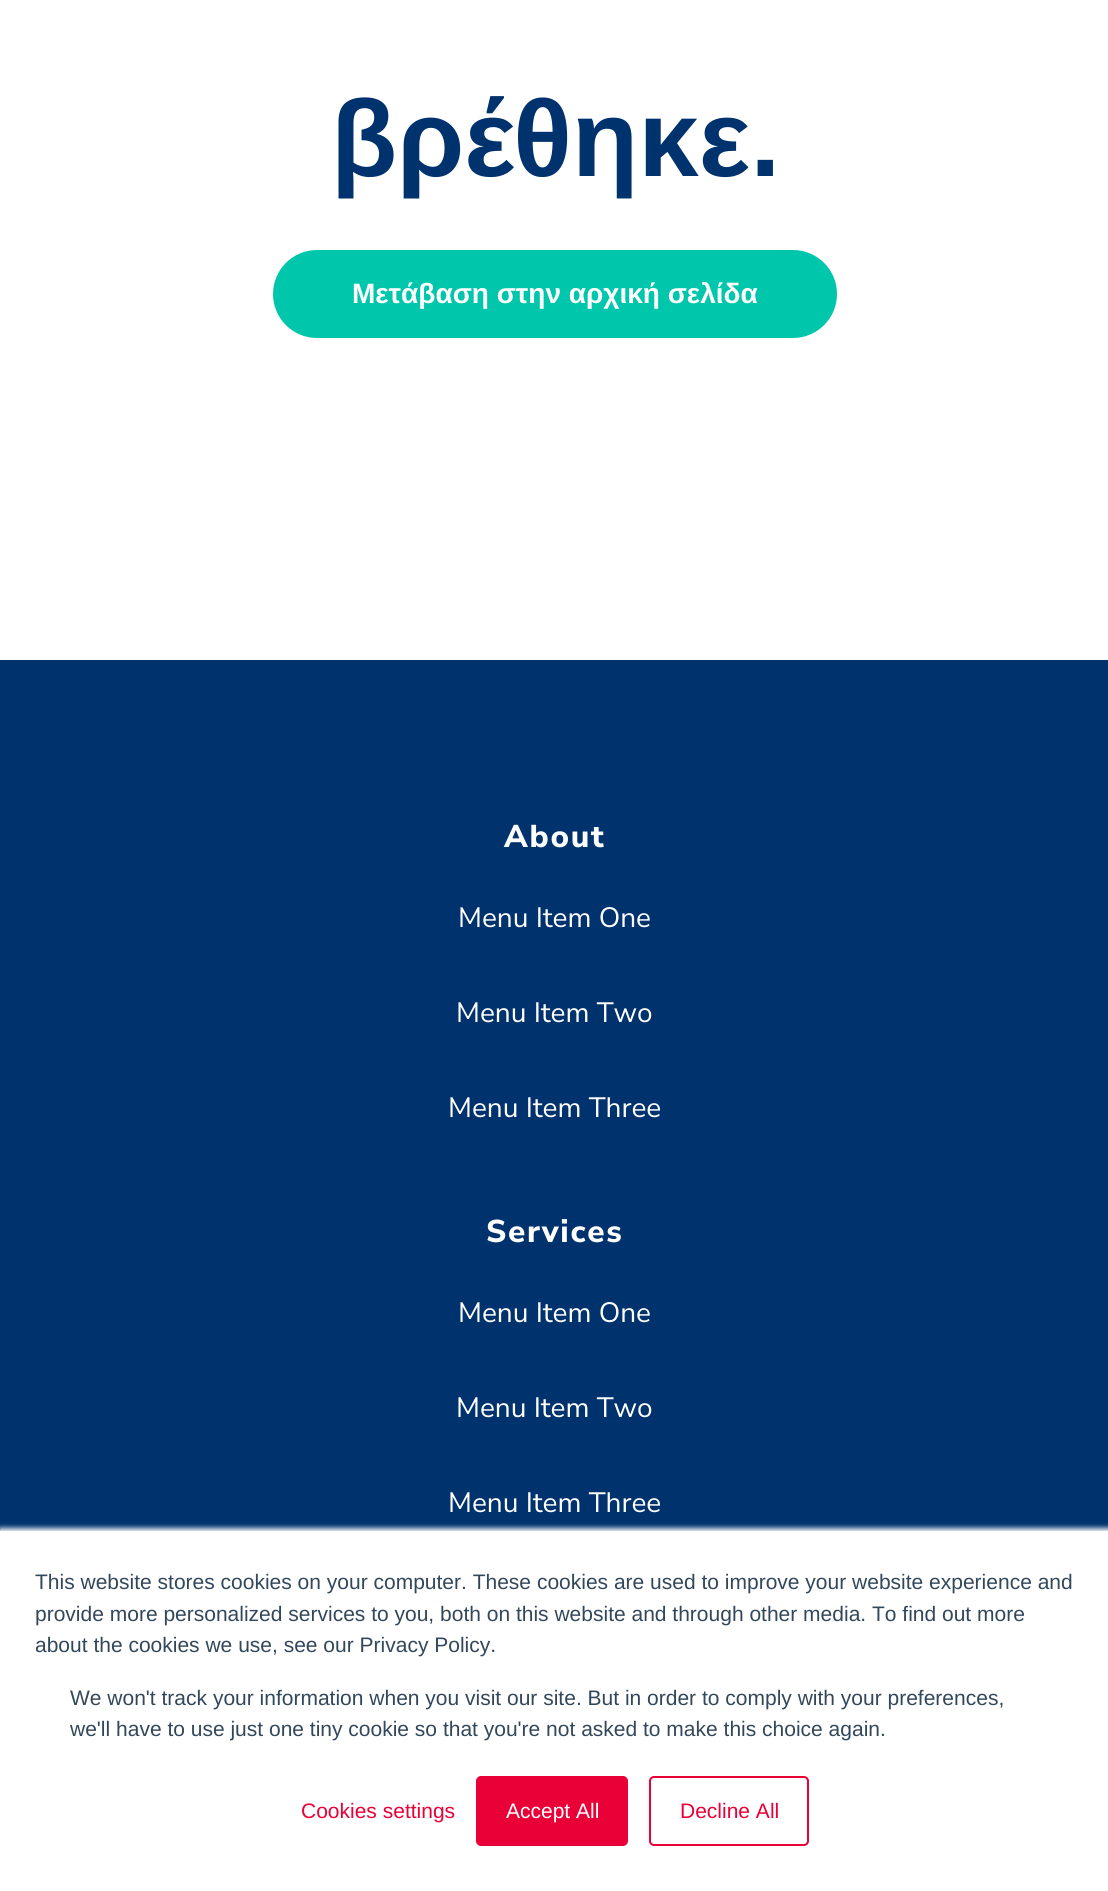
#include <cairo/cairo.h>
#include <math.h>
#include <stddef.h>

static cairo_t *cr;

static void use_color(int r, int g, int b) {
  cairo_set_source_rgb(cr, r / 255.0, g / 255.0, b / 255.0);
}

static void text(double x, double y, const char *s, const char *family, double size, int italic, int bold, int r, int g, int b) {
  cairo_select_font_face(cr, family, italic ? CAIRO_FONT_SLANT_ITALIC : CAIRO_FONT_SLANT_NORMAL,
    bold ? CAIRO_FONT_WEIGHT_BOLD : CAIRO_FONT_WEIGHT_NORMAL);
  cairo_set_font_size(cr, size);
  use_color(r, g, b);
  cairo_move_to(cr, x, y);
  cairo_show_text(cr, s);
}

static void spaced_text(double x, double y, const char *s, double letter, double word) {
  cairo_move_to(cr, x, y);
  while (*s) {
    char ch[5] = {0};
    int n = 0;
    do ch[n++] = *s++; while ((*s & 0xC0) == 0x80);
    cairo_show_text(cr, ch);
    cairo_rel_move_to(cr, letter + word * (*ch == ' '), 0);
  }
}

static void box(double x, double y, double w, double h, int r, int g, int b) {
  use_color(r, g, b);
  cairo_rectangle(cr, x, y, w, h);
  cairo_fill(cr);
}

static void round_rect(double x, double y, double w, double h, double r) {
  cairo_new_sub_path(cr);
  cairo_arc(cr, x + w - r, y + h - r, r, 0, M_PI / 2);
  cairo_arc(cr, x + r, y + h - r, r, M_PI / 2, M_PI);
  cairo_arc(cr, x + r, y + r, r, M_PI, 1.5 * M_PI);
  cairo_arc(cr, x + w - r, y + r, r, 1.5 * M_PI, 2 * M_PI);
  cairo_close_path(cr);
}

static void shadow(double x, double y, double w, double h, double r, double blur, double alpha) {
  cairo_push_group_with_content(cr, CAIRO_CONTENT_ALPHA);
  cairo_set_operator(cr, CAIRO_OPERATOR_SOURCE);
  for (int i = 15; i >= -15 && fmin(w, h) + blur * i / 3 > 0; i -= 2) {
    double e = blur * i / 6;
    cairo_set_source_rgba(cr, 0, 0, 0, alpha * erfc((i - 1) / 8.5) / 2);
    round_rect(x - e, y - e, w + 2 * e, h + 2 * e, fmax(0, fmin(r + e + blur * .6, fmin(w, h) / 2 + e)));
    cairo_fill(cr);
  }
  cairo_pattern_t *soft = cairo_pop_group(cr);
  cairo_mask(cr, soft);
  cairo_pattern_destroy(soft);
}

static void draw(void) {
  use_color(255, 255, 255);
  cairo_paint(cr);
  use_color(0, 198, 171);
  round_rect(274, 251, 562, 86, 43);
  cairo_fill_preserve(cr);
  cairo_stroke(cr);
  box(0, 660, 1108, 870, 0, 50, 109);
  use_color(234, 240, 246);
  shadow(0, 1528, 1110, 362, 0, 2.5, 1);
  box(0, 1530, 1108, 1, 203, 214, 226);
  box(0, 1531, 1108, 360, 255, 255, 255);
  use_color(233, 0, 55);
  round_rect(477, 1777, 150, 68, 4);
  cairo_fill_preserve(cr);
  cairo_stroke(cr);
  round_rect(650, 1777, 158, 68, 4);
  cairo_stroke(cr);
  text(331, 176, "βρέθηκε.", "Liberation Sans", 108.5, 0, 1, 0, 50, 109);
  text(352, 303, "Μετάβαση στην αρχική σελίδα", "Liberation Sans", 28, 0, 1, 255, 255, 255);
  cairo_select_font_face(cr, "Nunito Sans ExtraBold", CAIRO_FONT_SLANT_NORMAL, CAIRO_FONT_WEIGHT_NORMAL);
  cairo_set_font_size(cr, 31.5);
  spaced_text(504, 847, "About", 1.75, 0);
  text(458, 927, "Menu Item One", "Nunito Sans", 28, 0, 0, 255, 255, 255);
  text(456, 1022, "Menu Item Two", "Nunito Sans", 28, 0, 0, 255, 255, 255);
  text(448, 1117, "Menu Item Three", "Nunito Sans", 28, 0, 0, 255, 255, 255);
  cairo_select_font_face(cr, "Nunito Sans ExtraBold", CAIRO_FONT_SLANT_NORMAL, CAIRO_FONT_WEIGHT_NORMAL);
  cairo_set_font_size(cr, 31.5);
  spaced_text(486, 1242, "Services", 1.75, 0);
  text(458, 1322, "Menu Item One", "Nunito Sans", 28, 0, 0, 255, 255, 255);
  text(456, 1417, "Menu Item Two", "Nunito Sans", 28, 0, 0, 255, 255, 255);
  text(448, 1512, "Menu Item Three", "Nunito Sans", 28, 0, 0, 255, 255, 255);
  text(35, 1589, "This website stores cookies on your computer. These cookies are used to improve your website experience and", "Liberation Sans", 21, 0, 0, 51, 71, 91);
  text(35, 1621, "provide more personalized services to you, both on this website and through other media. To find out more", "Liberation Sans", 21, 0, 0, 51, 71, 91);
  text(35, 1652, "about the cookies we use, see our Privacy Policy.", "Liberation Sans", 21, 0, 0, 51, 71, 91);
  text(70, 1705, "We won't track your information when you visit our site. But in order to comply with your preferences,", "Liberation Sans", 21, 0, 0, 51, 71, 91);
  text(70, 1736, "we'll have to use just one tiny cookie so that you're not asked to make this choice again.", "Liberation Sans", 21, 0, 0, 51, 71, 91);
  text(301, 1818, "Cookies settings", "Liberation Sans", 21, 0, 0, 233, 0, 55);
  text(506, 1818, "Accept All", "Liberation Sans", 21, 0, 0, 255, 255, 255);
  text(680, 1818, "Decline All", "Liberation Sans", 21, 0, 0, 233, 0, 55);
}

int main(void) {
  cairo_surface_t *surface = cairo_image_surface_create(CAIRO_FORMAT_RGB24, 1108, 1891);
  cr = cairo_create(surface);
  cairo_font_options_t *options = cairo_font_options_create();
  cairo_font_options_set_hint_metrics(options, CAIRO_HINT_METRICS_OFF);
  cairo_font_options_set_hint_style(options, CAIRO_HINT_STYLE_NONE);
  cairo_set_font_options(cr, options);
  cairo_set_miter_limit(cr, 4);
  draw();
  cairo_surface_write_to_png(surface, "out.png");
  cairo_font_options_destroy(options);
  cairo_destroy(cr);
  cairo_surface_destroy(surface);
  return 0;
}
